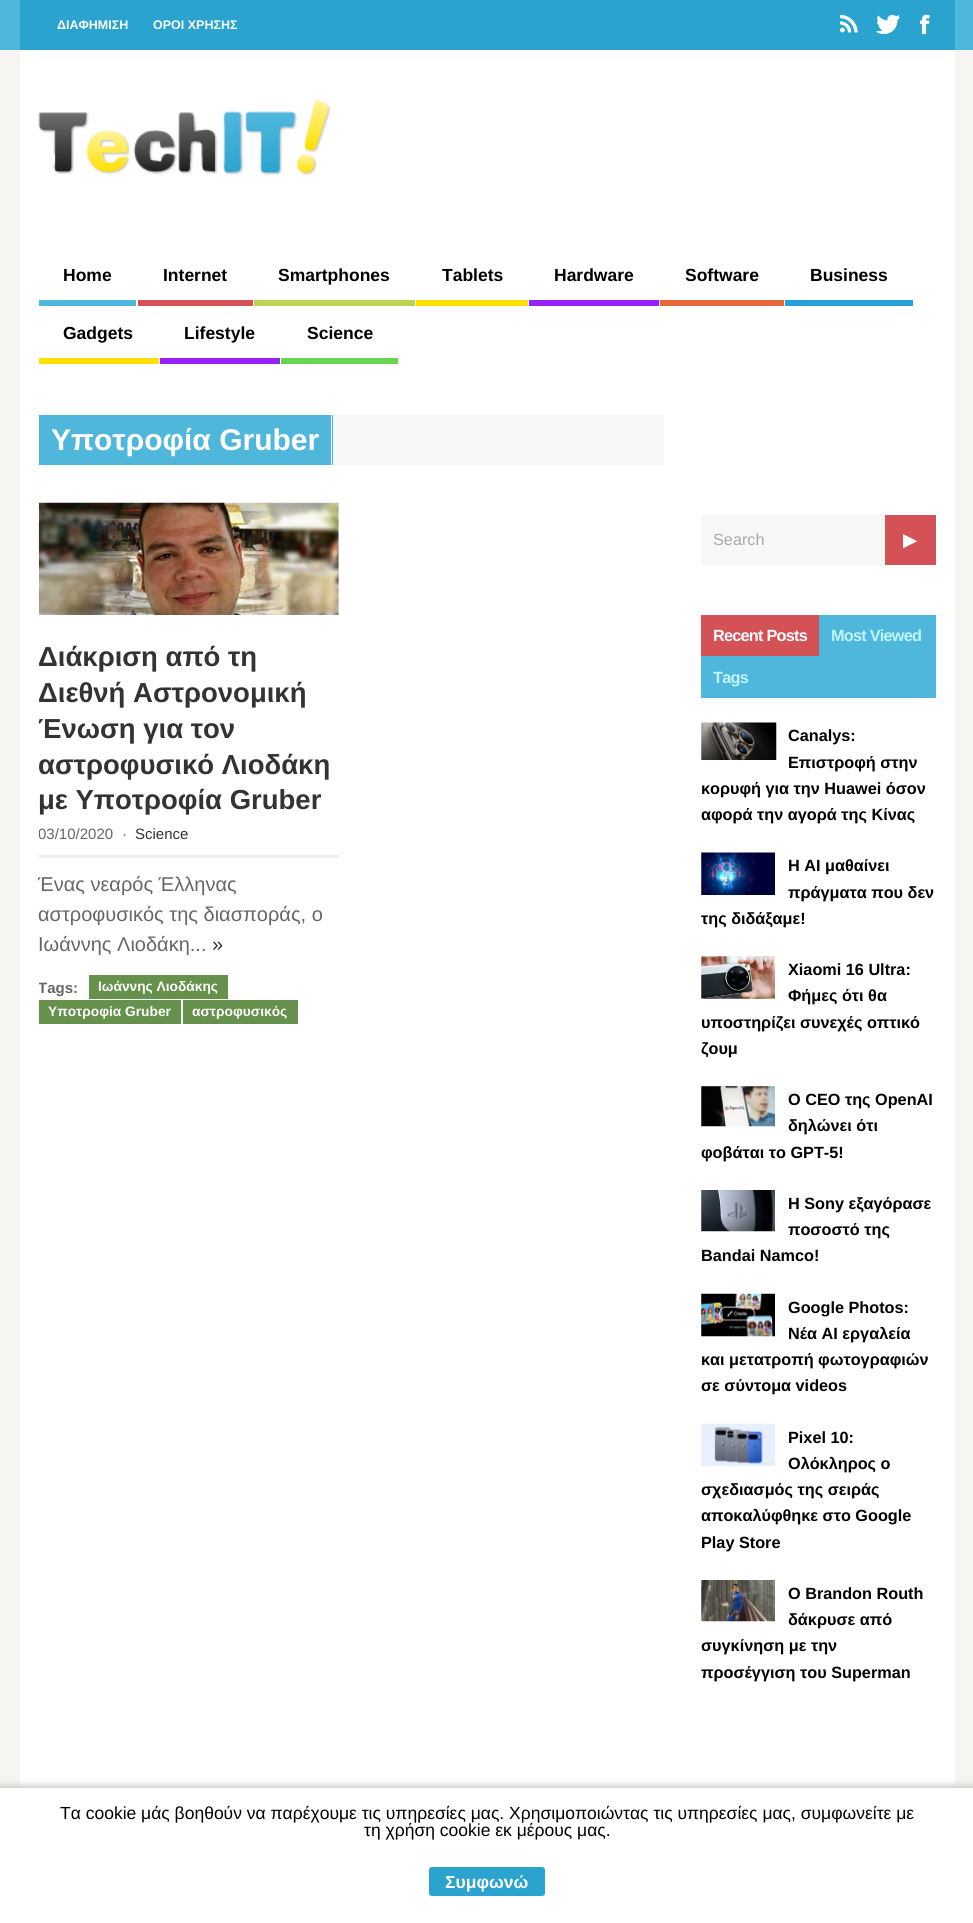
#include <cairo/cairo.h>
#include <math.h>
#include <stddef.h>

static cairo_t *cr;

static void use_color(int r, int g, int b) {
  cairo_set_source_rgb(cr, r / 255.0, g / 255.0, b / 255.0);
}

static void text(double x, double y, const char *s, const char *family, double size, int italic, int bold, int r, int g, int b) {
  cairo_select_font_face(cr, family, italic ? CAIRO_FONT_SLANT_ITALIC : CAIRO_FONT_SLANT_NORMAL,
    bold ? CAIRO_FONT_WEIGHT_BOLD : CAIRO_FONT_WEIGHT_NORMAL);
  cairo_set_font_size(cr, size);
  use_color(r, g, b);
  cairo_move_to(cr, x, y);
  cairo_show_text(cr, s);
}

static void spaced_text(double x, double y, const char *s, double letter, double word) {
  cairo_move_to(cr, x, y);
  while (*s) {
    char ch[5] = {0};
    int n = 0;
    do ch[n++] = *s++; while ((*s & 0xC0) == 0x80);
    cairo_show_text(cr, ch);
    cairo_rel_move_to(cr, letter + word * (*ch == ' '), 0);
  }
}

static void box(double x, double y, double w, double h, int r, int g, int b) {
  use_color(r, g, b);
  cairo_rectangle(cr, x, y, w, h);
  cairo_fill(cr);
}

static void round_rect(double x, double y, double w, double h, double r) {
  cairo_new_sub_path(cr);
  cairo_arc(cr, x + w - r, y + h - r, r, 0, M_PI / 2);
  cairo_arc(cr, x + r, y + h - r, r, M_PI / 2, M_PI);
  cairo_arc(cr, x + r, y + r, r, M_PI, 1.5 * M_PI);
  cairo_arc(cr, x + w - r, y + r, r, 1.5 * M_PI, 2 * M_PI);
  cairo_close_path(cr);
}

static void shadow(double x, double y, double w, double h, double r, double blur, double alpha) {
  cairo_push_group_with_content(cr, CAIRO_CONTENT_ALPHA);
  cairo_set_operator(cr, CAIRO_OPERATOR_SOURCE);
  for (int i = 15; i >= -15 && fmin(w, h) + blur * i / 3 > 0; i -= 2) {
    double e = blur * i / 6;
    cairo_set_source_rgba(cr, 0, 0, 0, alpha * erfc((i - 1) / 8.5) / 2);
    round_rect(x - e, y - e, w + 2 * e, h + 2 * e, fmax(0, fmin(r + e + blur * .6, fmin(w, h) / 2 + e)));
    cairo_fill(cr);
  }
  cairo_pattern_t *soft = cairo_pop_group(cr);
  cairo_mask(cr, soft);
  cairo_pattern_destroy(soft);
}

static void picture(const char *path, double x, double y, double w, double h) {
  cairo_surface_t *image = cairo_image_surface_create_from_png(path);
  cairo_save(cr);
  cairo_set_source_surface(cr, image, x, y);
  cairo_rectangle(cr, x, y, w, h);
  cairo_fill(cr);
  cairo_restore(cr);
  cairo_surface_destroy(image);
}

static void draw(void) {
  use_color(246, 245, 242);
  cairo_paint(cr);
  box(0, 0, 973, 50, 80, 183, 220);
  box(20, 0, 935, 50, 42, 164, 207);
  picture("img_01.png", 840, 14, 18, 19);
  picture("img_02.png", 876, 14, 24, 21);
  picture("img_03.png", 920, 14, 10, 21);
  box(20, 50, 935, 1738, 255, 255, 255);
  picture("img_04.png", 38, 100, 293, 75);
  box(39, 300, 97, 6, 80, 183, 220);
  box(138, 300, 115, 6, 212, 82, 85);
  box(254, 300, 161, 6, 189, 212, 82);
  box(416, 300, 112, 6, 255, 224, 0);
  box(529, 300, 130, 6, 149, 33, 247);
  box(660, 300, 124, 6, 233, 103, 57);
  box(785, 300, 128, 6, 38, 160, 216);
  box(39, 358, 120, 6, 255, 224, 0);
  box(160, 358, 120, 6, 149, 33, 247);
  box(281, 358, 117, 6, 103, 212, 82);
  box(333, 415, 331, 50, 247, 247, 247);
  box(39, 415, 294, 50, 80, 183, 220);
  box(331, 415, 1, 50, 255, 255, 255);
  picture("img_05.png", 38, 502, 301, 113);
  box(39, 855, 300, 3, 238, 238, 238);
  box(89, 975, 139, 24, 102, 145, 77);
  box(39, 1000, 142, 24, 102, 145, 77);
  box(183, 1000, 115, 24, 102, 145, 77);
  box(701, 515, 184, 50, 247, 247, 247);
  box(885, 515, 51, 50, 212, 82, 85);
  box(701, 615, 235, 83, 80, 183, 220);
  box(701, 615, 118, 41, 212, 82, 85);
  picture("img_06.png", 701, 722, 76, 38);
  picture("img_07.png", 701, 852, 74, 43);
  picture("img_08.png", 701, 956, 74, 43);
  picture("img_09.png", 701, 1086, 74, 41);
  picture("img_10.png", 701, 1190, 74, 42);
  picture("img_11.png", 701, 1293, 74, 44);
  picture("img_12.png", 701, 1423, 74, 44);
  picture("img_13.png", 701, 1580, 74, 42);
  use_color(204, 204, 204);
  shadow(-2, 1785, 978, 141, 0, 3, 1);
  box(0, 1788, 973, 135, 255, 255, 255);
  use_color(42, 164, 207);
  round_rect(427.5, 1865.5, 119, 32, 4.5);
  cairo_fill_preserve(cr);
  use_color(255, 255, 255);
  cairo_set_line_width(cr, 3);
  cairo_stroke(cr);
  text(57, 29, "ΔΙΑΦΗΜΙΣΗ", "Liberation Sans", 12.5, 0, 1, 255, 255, 255);
  text(153, 29, "ΟΡΟΙ ΧΡΗΣΗΣ", "Liberation Sans", 12.5, 0, 1, 255, 255, 255);
  text(63, 281, "Home", "Liberation Sans", 17.5, 0, 1, 0, 0, 0);
  text(163, 281, "Internet", "Liberation Sans", 17.5, 0, 1, 0, 0, 0);
  text(278, 281, "Smartphones", "Liberation Sans", 17.5, 0, 1, 0, 0, 0);
  text(442, 281, "Tablets", "Liberation Sans", 17.5, 0, 1, 0, 0, 0);
  text(554, 281, "Hardware", "Liberation Sans", 17.5, 0, 1, 0, 0, 0);
  text(685, 281, "Software", "Liberation Sans", 17.5, 0, 1, 0, 0, 0);
  text(810, 281, "Business", "Liberation Sans", 17.5, 0, 1, 0, 0, 0);
  text(63, 339, "Gadgets", "Liberation Sans", 17.5, 0, 1, 0, 0, 0);
  text(184, 339, "Lifestyle", "Liberation Sans", 17.5, 0, 1, 0, 0, 0);
  text(307, 339, "Science", "Liberation Sans", 17.5, 0, 1, 0, 0, 0);
  text(51, 450, "Υποτροφία Gruber", "Liberation Sans", 30, 0, 1, 255, 255, 255);
  text(38, 666, "Διάκριση από τη", "Liberation Sans", 27.5, 0, 1, 51, 51, 51);
  text(38, 702, "Διεθνή Αστρονομική", "Liberation Sans", 27.5, 0, 1, 51, 51, 51);
  text(38, 738, "Ένωση για τον", "Liberation Sans", 27.5, 0, 1, 51, 51, 51);
  text(38, 774, "αστροφυσικό Λιοδάκη", "Liberation Sans", 27.5, 0, 1, 51, 51, 51);
  text(38, 809, "με Υποτροφία Gruber", "Liberation Sans", 27.5, 0, 1, 51, 51, 51);
  cairo_save(cr);
  cairo_rectangle(cr, 39, 825, 300, 30);
  cairo_clip(cr);
  text(38, 839, "03/10/2020", "Liberation Sans", 15, 0, 0, 102, 102, 102);
  cairo_restore(cr);
  text(122, 839, "·", "Liberation Sans", 15, 0, 0, 102, 102, 102);
  text(135, 839, "Science", "Liberation Sans", 15, 0, 0, 51, 51, 51);
  text(38, 891, "Ένας νεαρός Έλληνας", "Liberation Sans", 20, 0, 0, 102, 102, 102);
  text(38, 921, "αστροφυσικός της διασποράς, ο", "Liberation Sans", 20, 0, 0, 102, 102, 102);
  text(38, 951, "Ιωάννης Λιοδάκη...", "Liberation Sans", 20, 0, 0, 102, 102, 102);
  text(212, 951, "»", "Liberation Sans", 20, 0, 0, 51, 51, 51);
  cairo_save(cr);
  cairo_rectangle(cr, 39, 975, 300, 50);
  cairo_clip(cr);
  text(38, 993, "Tags:", "Liberation Sans", 15, 0, 1, 102, 102, 102);
  cairo_restore(cr);
  text(98, 991, "Ιωάννης Λιοδάκης", "Liberation Sans", 13.75, 0, 1, 255, 255, 255);
  text(48, 1016, "Υποτροφία Gruber", "Liberation Sans", 13.75, 0, 1, 255, 255, 255);
  text(192, 1016, "αστροφυσικός", "Liberation Sans", 13.75, 0, 1, 255, 255, 255);
  text(713, 545, "Search", "Liberation Sans", 16.25, 0, 0, 170, 170, 170);
  text(903, 546, "▶", "DejaVu Sans", 17.5, 0, 1, 255, 255, 255);
  cairo_select_font_face(cr, "Liberation Sans", CAIRO_FONT_SLANT_NORMAL, CAIRO_FONT_WEIGHT_BOLD);
  cairo_set_font_size(cr, 16.25);
  spaced_text(713, 641, "Recent Posts", -0.75, 0);
  use_color(192, 245, 255);
  spaced_text(831, 641, "Most Viewed", -0.75, 0);
  spaced_text(713, 683, "Tags", -0.75, 0);
  text(788, 741, "Canalys:", "Liberation Sans", 16.25, 0, 1, 0, 0, 0);
  text(788, 768, "Επιστροφή στην", "Liberation Sans", 16.25, 0, 1, 0, 0, 0);
  text(701, 794, "κορυφή για την Huawei όσον", "Liberation Sans", 16.25, 0, 1, 0, 0, 0);
  text(701, 820, "αφορά την αγορά της Κίνας", "Liberation Sans", 16.25, 0, 1, 0, 0, 0);
  text(788, 871, "Η AI μαθαίνει", "Liberation Sans", 16.25, 0, 1, 0, 0, 0);
  text(788, 898, "πράγματα που δεν", "Liberation Sans", 16.25, 0, 1, 0, 0, 0);
  text(701, 924, "της διδάξαμε!", "Liberation Sans", 16.25, 0, 1, 0, 0, 0);
  text(788, 975, "Xiaomi 16 Ultra:", "Liberation Sans", 16.25, 0, 1, 0, 0, 0);
  text(788, 1001, "Φήμες ότι θα", "Liberation Sans", 16.25, 0, 1, 0, 0, 0);
  text(701, 1028, "υποστηρίζει συνεχές οπτικό", "Liberation Sans", 16.25, 0, 1, 0, 0, 0);
  text(701, 1054, "ζουμ", "Liberation Sans", 16.25, 0, 1, 0, 0, 0);
  text(788, 1105, "Ο CEO της OpenAI", "Liberation Sans", 16.25, 0, 1, 0, 0, 0);
  text(788, 1131, "δηλώνει ότι", "Liberation Sans", 16.25, 0, 1, 0, 0, 0);
  text(701, 1158, "φοβάται το GPT-5!", "Liberation Sans", 16.25, 0, 1, 0, 0, 0);
  text(788, 1209, "H Sony εξαγόρασε", "Liberation Sans", 16.25, 0, 1, 0, 0, 0);
  text(788, 1235, "ποσοστό της", "Liberation Sans", 16.25, 0, 1, 0, 0, 0);
  text(701, 1261, "Bandai Namco!", "Liberation Sans", 16.25, 0, 1, 0, 0, 0);
  text(788, 1313, "Google Photos:", "Liberation Sans", 16.25, 0, 1, 0, 0, 0);
  text(788, 1339, "Νέα AI εργαλεία", "Liberation Sans", 16.25, 0, 1, 0, 0, 0);
  text(701, 1365, "και μετατροπή φωτογραφιών", "Liberation Sans", 16.25, 0, 1, 0, 0, 0);
  text(701, 1391, "σε σύντομα videos", "Liberation Sans", 16.25, 0, 1, 0, 0, 0);
  text(788, 1443, "Pixel 10:", "Liberation Sans", 16.25, 0, 1, 0, 0, 0);
  text(788, 1469, "Ολόκληρος ο", "Liberation Sans", 16.25, 0, 1, 0, 0, 0);
  text(701, 1495, "σχεδιασμός της σειράς", "Liberation Sans", 16.25, 0, 1, 0, 0, 0);
  text(701, 1521, "αποκαλύφθηκε στο Google", "Liberation Sans", 16.25, 0, 1, 0, 0, 0);
  text(701, 1548, "Play Store", "Liberation Sans", 16.25, 0, 1, 0, 0, 0);
  text(788, 1599, "Ο Brandon Routh", "Liberation Sans", 16.25, 0, 1, 0, 0, 0);
  text(788, 1625, "δάκρυσε από", "Liberation Sans", 16.25, 0, 1, 0, 0, 0);
  text(701, 1651, "συγκίνηση με την", "Liberation Sans", 16.25, 0, 1, 0, 0, 0);
  text(701, 1678, "προσέγγιση του Superman", "Liberation Sans", 16.25, 0, 1, 0, 0, 0);
  text(60, 1819, "Τα cookie μάς βοηθούν να παρέχουμε τις υπηρεσίες μας. Χρησιμοποιώντας τις υπηρεσίες μας, συμφωνείτε με", "Liberation Sans", 17.5, 0, 0, 0, 0, 0);
  text(364, 1836, "τη χρήση cookie εκ μέρους μας.", "Liberation Sans", 17.5, 0, 0, 0, 0, 0);
  text(445, 1888, "Συμφωνώ", "Liberation Sans", 17.5, 0, 1, 255, 255, 255);
}

int main(void) {
  cairo_surface_t *surface = cairo_image_surface_create(CAIRO_FORMAT_RGB24, 973, 1923);
  cr = cairo_create(surface);
  cairo_font_options_t *options = cairo_font_options_create();
  cairo_font_options_set_hint_metrics(options, CAIRO_HINT_METRICS_OFF);
  cairo_font_options_set_hint_style(options, CAIRO_HINT_STYLE_NONE);
  cairo_set_font_options(cr, options);
  cairo_set_miter_limit(cr, 4);
  draw();
  cairo_surface_write_to_png(surface, "out.png");
  cairo_font_options_destroy(options);
  cairo_destroy(cr);
  cairo_surface_destroy(surface);
  return 0;
}
